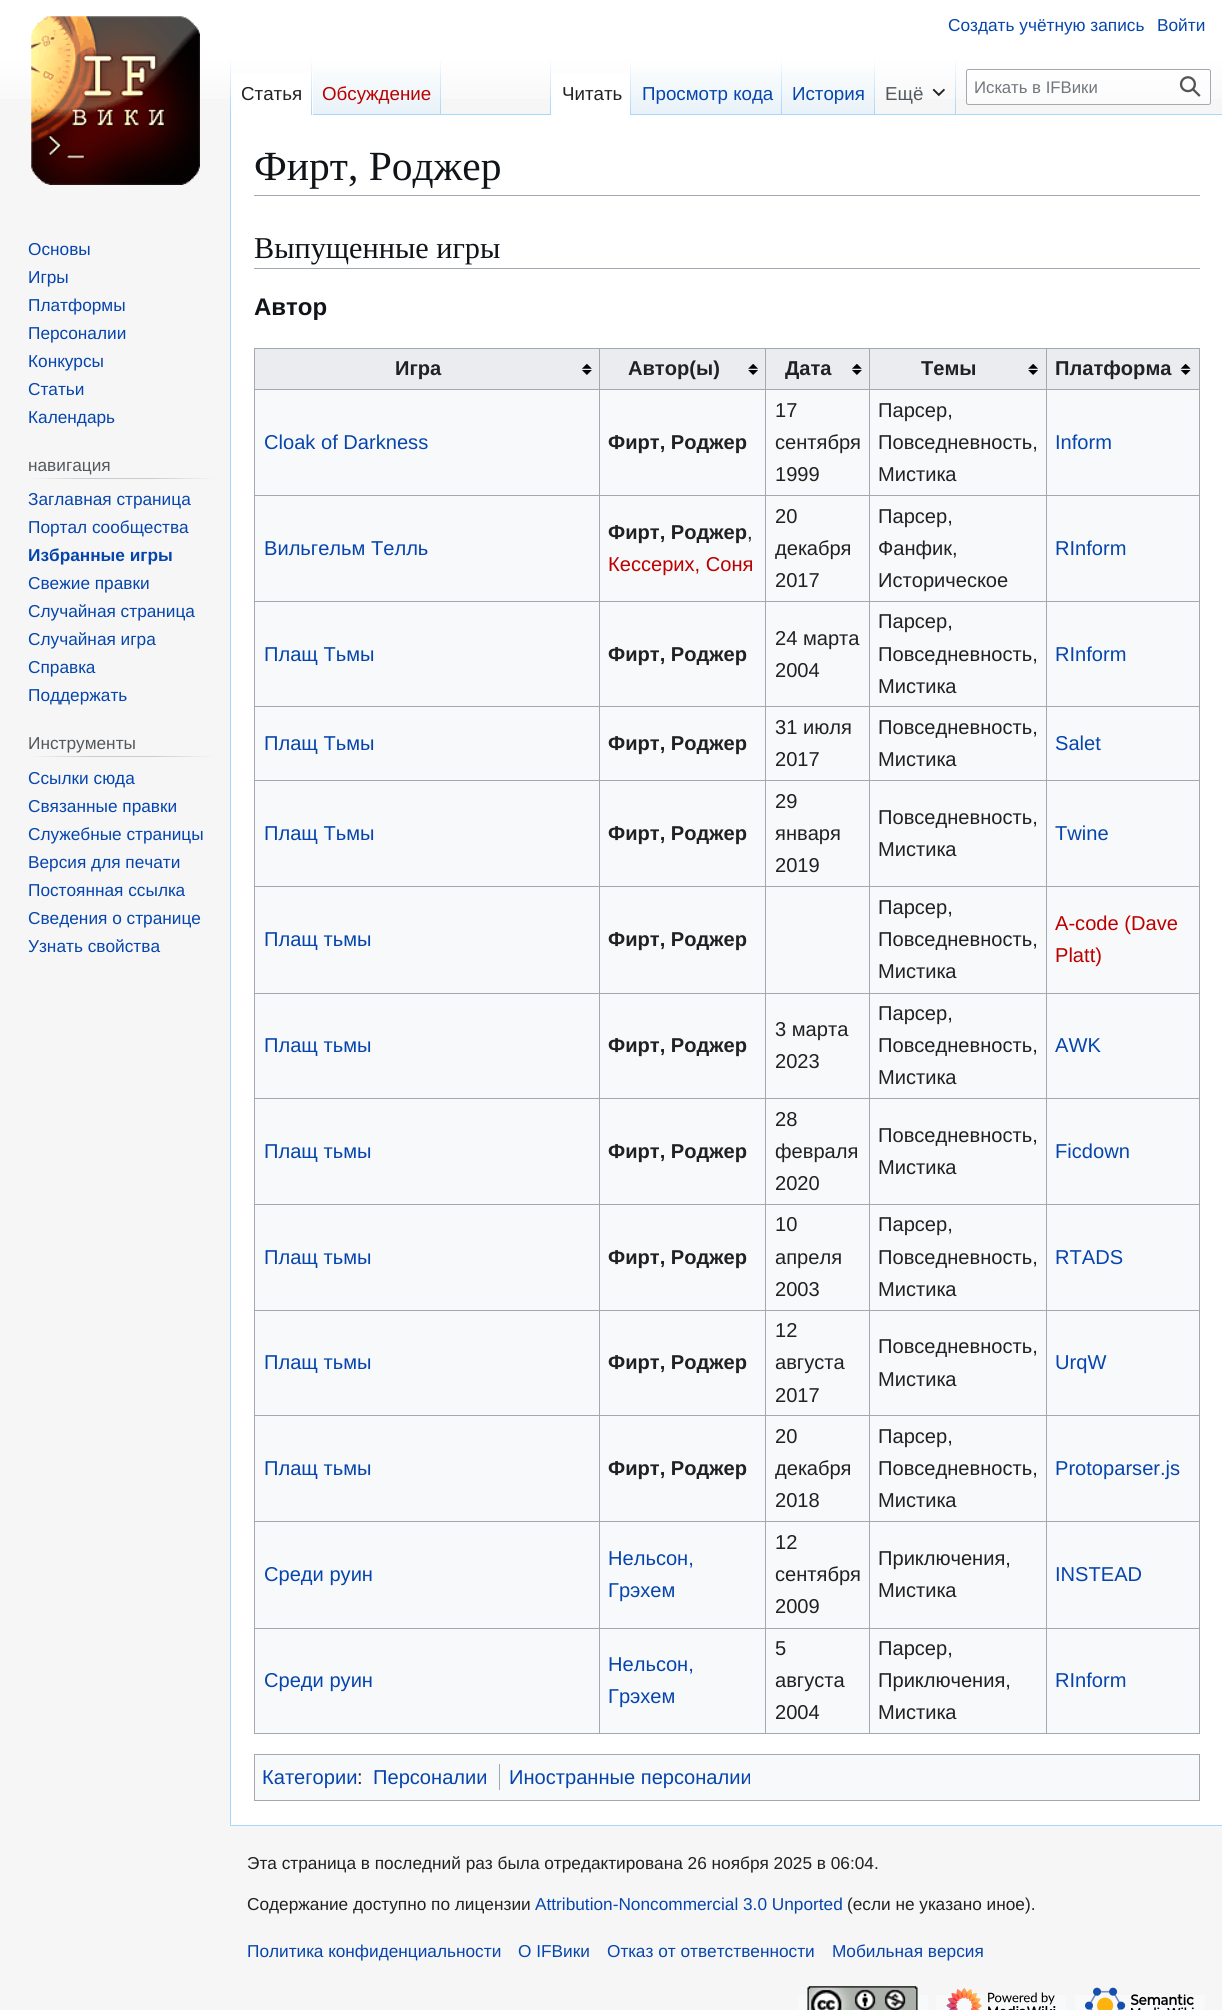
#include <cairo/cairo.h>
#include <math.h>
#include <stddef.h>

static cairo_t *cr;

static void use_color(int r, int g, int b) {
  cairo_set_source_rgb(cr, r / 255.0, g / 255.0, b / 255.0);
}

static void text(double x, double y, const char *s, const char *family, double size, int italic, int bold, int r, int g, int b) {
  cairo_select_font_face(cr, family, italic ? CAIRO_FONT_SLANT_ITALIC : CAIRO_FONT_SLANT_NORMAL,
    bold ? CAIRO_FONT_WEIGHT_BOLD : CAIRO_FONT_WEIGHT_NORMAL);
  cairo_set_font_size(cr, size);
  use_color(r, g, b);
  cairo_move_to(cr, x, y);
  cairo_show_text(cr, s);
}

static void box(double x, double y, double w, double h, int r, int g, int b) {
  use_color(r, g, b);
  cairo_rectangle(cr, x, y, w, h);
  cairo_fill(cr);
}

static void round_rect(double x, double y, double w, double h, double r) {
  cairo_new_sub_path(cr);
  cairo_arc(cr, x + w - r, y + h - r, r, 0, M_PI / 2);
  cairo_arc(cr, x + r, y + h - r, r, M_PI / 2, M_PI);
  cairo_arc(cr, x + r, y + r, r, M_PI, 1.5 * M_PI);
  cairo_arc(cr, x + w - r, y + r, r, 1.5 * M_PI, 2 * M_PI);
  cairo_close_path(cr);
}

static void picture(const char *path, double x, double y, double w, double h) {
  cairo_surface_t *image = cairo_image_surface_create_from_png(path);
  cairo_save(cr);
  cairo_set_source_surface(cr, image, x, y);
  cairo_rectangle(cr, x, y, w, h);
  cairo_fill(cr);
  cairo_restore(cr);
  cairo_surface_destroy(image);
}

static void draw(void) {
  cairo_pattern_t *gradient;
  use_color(246, 246, 246);
  cairo_paint(cr);
  gradient = cairo_pattern_create_linear(611, 0, 611, 115);
  cairo_pattern_add_color_stop_rgba(gradient, 0.5, 1, 1, 1, 1);
  cairo_pattern_add_color_stop_rgba(gradient, 1, 0.965, 0.965, 0.965, 1);
  cairo_set_source(cr, gradient);
  cairo_pattern_destroy(gradient);
  cairo_rectangle(cr, 0, 0, 1222, 99);
  cairo_fill(cr);
  box(230, 1825, 992, 1, 167, 215, 249);
  box(230, 114, 1, 1712, 167, 215, 249);
  gradient = cairo_pattern_create_linear(231, 58, 231, 115);
  cairo_pattern_add_color_stop_rgba(gradient, 0, 0.655, 0.843, 0.976, 0);
  cairo_pattern_add_color_stop_rgba(gradient, 1, 0.655, 0.843, 0.976, 1);
  cairo_set_source(cr, gradient);
  cairo_pattern_destroy(gradient);
  cairo_rectangle(cr, 230, 58, 1, 57);
  cairo_fill(cr);
  box(231, 73, 82, 42, 255, 255, 255);
  gradient = cairo_pattern_create_linear(312, 58, 312, 115);
  cairo_pattern_add_color_stop_rgba(gradient, 0, 1, 1, 1, 1);
  cairo_pattern_add_color_stop_rgba(gradient, 1, 0.655, 0.843, 0.976, 1);
  cairo_set_source(cr, gradient);
  cairo_pattern_destroy(gradient);
  cairo_rectangle(cr, 311, 58, 1, 57);
  cairo_fill(cr);
  gradient = cairo_pattern_create_linear(377, 115, 377, 58);
  cairo_pattern_add_color_stop_rgba(gradient, 0, 0.467, 0.757, 0.965, 1);
  cairo_pattern_add_color_stop_rgba(gradient, 0.02, 0.91, 0.949, 0.973, 1);
  cairo_pattern_add_color_stop_rgba(gradient, 1, 1, 1, 1, 1);
  cairo_set_source(cr, gradient);
  cairo_pattern_destroy(gradient);
  cairo_rectangle(cr, 313, 69, 128, 46);
  cairo_fill(cr);
  gradient = cairo_pattern_create_linear(441, 58, 441, 115);
  cairo_pattern_add_color_stop_rgba(gradient, 0, 0.655, 0.843, 0.976, 0);
  cairo_pattern_add_color_stop_rgba(gradient, 1, 0.655, 0.843, 0.976, 1);
  cairo_set_source(cr, gradient);
  cairo_pattern_destroy(gradient);
  cairo_rectangle(cr, 440, 58, 1, 57);
  cairo_fill(cr);
  box(441, 114, 781, 1, 167, 215, 249);
  gradient = cairo_pattern_create_linear(551, 58, 551, 115);
  cairo_pattern_add_color_stop_rgba(gradient, 0, 0.655, 0.843, 0.976, 0);
  cairo_pattern_add_color_stop_rgba(gradient, 1, 0.655, 0.843, 0.976, 1);
  cairo_set_source(cr, gradient);
  cairo_pattern_destroy(gradient);
  cairo_rectangle(cr, 550, 58, 1, 57);
  cairo_fill(cr);
  box(551, 73, 79, 42, 255, 255, 255);
  gradient = cairo_pattern_create_linear(631, 58, 631, 115);
  cairo_pattern_add_color_stop_rgba(gradient, 0, 1, 1, 1, 1);
  cairo_pattern_add_color_stop_rgba(gradient, 1, 0.655, 0.843, 0.976, 1);
  cairo_set_source(cr, gradient);
  cairo_pattern_destroy(gradient);
  cairo_rectangle(cr, 630, 58, 1, 57);
  cairo_fill(cr);
  gradient = cairo_pattern_create_linear(707, 115, 707, 58);
  cairo_pattern_add_color_stop_rgba(gradient, 0, 0.467, 0.757, 0.965, 1);
  cairo_pattern_add_color_stop_rgba(gradient, 0.02, 0.91, 0.949, 0.973, 1);
  cairo_pattern_add_color_stop_rgba(gradient, 1, 1, 1, 1, 1);
  cairo_set_source(cr, gradient);
  cairo_pattern_destroy(gradient);
  cairo_rectangle(cr, 631, 69, 152, 45);
  cairo_fill(cr);
  gradient = cairo_pattern_create_linear(782, 58, 782, 115);
  cairo_pattern_add_color_stop_rgba(gradient, 0, 0.655, 0.843, 0.976, 0);
  cairo_pattern_add_color_stop_rgba(gradient, 1, 0.655, 0.843, 0.976, 1);
  cairo_set_source(cr, gradient);
  cairo_pattern_destroy(gradient);
  cairo_rectangle(cr, 781, 58, 1, 57);
  cairo_fill(cr);
  gradient = cairo_pattern_create_linear(829, 115, 829, 58);
  cairo_pattern_add_color_stop_rgba(gradient, 0, 0.467, 0.757, 0.965, 1);
  cairo_pattern_add_color_stop_rgba(gradient, 0.02, 0.91, 0.949, 0.973, 1);
  cairo_pattern_add_color_stop_rgba(gradient, 1, 1, 1, 1, 1);
  cairo_set_source(cr, gradient);
  cairo_pattern_destroy(gradient);
  cairo_rectangle(cr, 783, 69, 92, 45);
  cairo_fill(cr);
  gradient = cairo_pattern_create_linear(874, 58, 874, 115);
  cairo_pattern_add_color_stop_rgba(gradient, 0, 0.655, 0.843, 0.976, 0);
  cairo_pattern_add_color_stop_rgba(gradient, 1, 0.655, 0.843, 0.976, 1);
  cairo_set_source(cr, gradient);
  cairo_pattern_destroy(gradient);
  cairo_rectangle(cr, 874, 58, 1, 57);
  cairo_fill(cr);
  gradient = cairo_pattern_create_linear(956, 58, 956, 114);
  cairo_pattern_add_color_stop_rgba(gradient, 0, 0.655, 0.843, 0.976, 0);
  cairo_pattern_add_color_stop_rgba(gradient, 1, 0.655, 0.843, 0.976, 1);
  cairo_set_source(cr, gradient);
  cairo_pattern_destroy(gradient);
  cairo_rectangle(cr, 955, 58, 1, 56);
  cairo_fill(cr);
  picture("img_01.png", 932, 88, 13, 9);
  cairo_set_source_rgba(cr, 1, 1, 1, 0.5);
  round_rect(966.5, 69.5, 244, 35, 2);
  cairo_fill_preserve(cr);
  use_color(162, 169, 177);
  cairo_set_line_width(cr, 1);
  cairo_stroke(cr);
  picture("img_02.png", 1179, 76, 22, 21);
  picture("img_03.png", 31, 16, 169, 169);
  gradient = cairo_pattern_create_linear(28, 478, 216, 478);
  cairo_pattern_add_color_stop_rgba(gradient, 0, 0.965, 0.965, 0.965, 1);
  cairo_pattern_add_color_stop_rgba(gradient, 0.33, 0.784, 0.8, 0.82, 1);
  cairo_pattern_add_color_stop_rgba(gradient, 0.66, 0.784, 0.8, 0.82, 1);
  cairo_pattern_add_color_stop_rgba(gradient, 1, 0.965, 0.965, 0.965, 1);
  cairo_set_source(cr, gradient);
  cairo_pattern_destroy(gradient);
  cairo_rectangle(cr, 28, 478, 188, 1);
  cairo_fill(cr);
  gradient = cairo_pattern_create_linear(28, 757, 216, 757);
  cairo_pattern_add_color_stop_rgba(gradient, 0, 0.965, 0.965, 0.965, 1);
  cairo_pattern_add_color_stop_rgba(gradient, 0.33, 0.784, 0.8, 0.82, 1);
  cairo_pattern_add_color_stop_rgba(gradient, 0.66, 0.784, 0.8, 0.82, 1);
  cairo_pattern_add_color_stop_rgba(gradient, 1, 0.965, 0.965, 0.965, 1);
  cairo_set_source(cr, gradient);
  cairo_pattern_destroy(gradient);
  cairo_rectangle(cr, 28, 756, 188, 1);
  cairo_fill(cr);
  box(231, 115, 991, 1710, 255, 255, 255);
  box(254, 195, 946, 1, 162, 169, 177);
  box(254, 268, 946, 1, 162, 169, 177);
  box(255, 390, 944, 1343, 248, 249, 250);
  box(254, 348, 946, 1, 162, 169, 177);
  box(1199, 348, 1, 1386, 162, 169, 177);
  box(254, 1733, 946, 1, 162, 169, 177);
  box(254, 348, 1, 1386, 162, 169, 177);
  box(255, 349, 344, 40, 234, 236, 240);
  picture("img_04.png", 582, 364, 10, 11);
  box(600, 349, 165, 40, 234, 236, 240);
  picture("img_05.png", 748, 364, 10, 11);
  box(1046, 389, 154, 1, 162, 169, 177);
  box(1046, 495, 154, 1, 162, 169, 177);
  box(1046, 601, 154, 1, 162, 169, 177);
  box(1046, 706, 154, 1, 162, 169, 177);
  box(1046, 780, 154, 1, 162, 169, 177);
  box(1046, 886, 154, 1, 162, 169, 177);
  box(1046, 993, 154, 1, 162, 169, 177);
  box(1046, 1098, 154, 1, 162, 169, 177);
  box(1046, 1204, 154, 1, 162, 169, 177);
  box(1046, 1310, 154, 1, 162, 169, 177);
  box(1046, 1415, 154, 1, 162, 169, 177);
  box(1046, 1521, 154, 1, 162, 169, 177);
  box(1046, 1628, 154, 1, 162, 169, 177);
  box(1046, 1628, 1, 106, 162, 169, 177);
  box(869, 1628, 179, 1, 162, 169, 177);
  box(1046, 1521, 1, 108, 162, 169, 177);
  box(869, 1521, 179, 1, 162, 169, 177);
  box(1046, 1415, 1, 108, 162, 169, 177);
  box(869, 1415, 179, 1, 162, 169, 177);
  box(1046, 1310, 1, 106, 162, 169, 177);
  box(869, 1310, 179, 1, 162, 169, 177);
  box(1046, 1204, 1, 107, 162, 169, 177);
  box(869, 1204, 179, 1, 162, 169, 177);
  box(1046, 1098, 1, 107, 162, 169, 177);
  box(869, 1098, 179, 1, 162, 169, 177);
  box(1046, 993, 1, 106, 162, 169, 177);
  box(869, 993, 179, 1, 162, 169, 177);
  box(1046, 886, 1, 108, 162, 169, 177);
  box(869, 886, 179, 1, 162, 169, 177);
  box(1046, 780, 1, 108, 162, 169, 177);
  box(869, 780, 179, 1, 162, 169, 177);
  box(1046, 706, 1, 75, 162, 169, 177);
  box(869, 706, 179, 1, 162, 169, 177);
  box(1046, 601, 1, 107, 162, 169, 177);
  box(869, 601, 179, 1, 162, 169, 177);
  box(1046, 495, 1, 108, 162, 169, 177);
  box(869, 495, 179, 1, 162, 169, 177);
  box(1046, 389, 1, 107, 162, 169, 177);
  box(869, 389, 179, 1, 162, 169, 177);
  box(869, 1628, 1, 106, 162, 169, 177);
  box(765, 1628, 105, 1, 162, 169, 177);
  box(869, 1521, 1, 108, 162, 169, 177);
  box(765, 1521, 105, 1, 162, 169, 177);
  box(869, 1415, 1, 108, 162, 169, 177);
  box(765, 1415, 105, 1, 162, 169, 177);
  box(869, 1310, 1, 106, 162, 169, 177);
  box(765, 1310, 105, 1, 162, 169, 177);
  box(869, 1204, 1, 107, 162, 169, 177);
  box(765, 1204, 105, 1, 162, 169, 177);
  box(869, 1098, 1, 107, 162, 169, 177);
  box(765, 1098, 105, 1, 162, 169, 177);
  box(869, 993, 1, 106, 162, 169, 177);
  box(765, 993, 105, 1, 162, 169, 177);
  box(869, 886, 1, 108, 162, 169, 177);
  box(765, 886, 105, 1, 162, 169, 177);
  box(869, 780, 1, 108, 162, 169, 177);
  box(765, 780, 105, 1, 162, 169, 177);
  box(869, 706, 1, 75, 162, 169, 177);
  box(765, 706, 105, 1, 162, 169, 177);
  box(869, 601, 1, 107, 162, 169, 177);
  box(765, 601, 105, 1, 162, 169, 177);
  box(869, 495, 1, 108, 162, 169, 177);
  box(765, 495, 105, 1, 162, 169, 177);
  box(869, 389, 1, 107, 162, 169, 177);
  box(765, 389, 105, 1, 162, 169, 177);
  box(765, 1628, 1, 106, 162, 169, 177);
  box(599, 1628, 167, 1, 162, 169, 177);
  box(765, 1521, 1, 108, 162, 169, 177);
  box(599, 1521, 167, 1, 162, 169, 177);
  box(765, 1415, 1, 108, 162, 169, 177);
  box(599, 1415, 167, 1, 162, 169, 177);
  box(765, 1310, 1, 106, 162, 169, 177);
  box(599, 1310, 167, 1, 162, 169, 177);
  box(765, 1204, 1, 107, 162, 169, 177);
  box(599, 1204, 167, 1, 162, 169, 177);
  box(765, 1098, 1, 107, 162, 169, 177);
  box(599, 1098, 167, 1, 162, 169, 177);
  box(765, 993, 1, 106, 162, 169, 177);
  box(599, 993, 167, 1, 162, 169, 177);
  box(765, 886, 1, 108, 162, 169, 177);
  box(599, 886, 167, 1, 162, 169, 177);
  box(765, 780, 1, 108, 162, 169, 177);
  box(599, 780, 167, 1, 162, 169, 177);
  box(765, 706, 1, 75, 162, 169, 177);
  box(599, 706, 167, 1, 162, 169, 177);
  box(765, 601, 1, 107, 162, 169, 177);
  box(599, 601, 167, 1, 162, 169, 177);
  box(765, 495, 1, 108, 162, 169, 177);
  box(599, 495, 167, 1, 162, 169, 177);
  box(765, 389, 1, 107, 162, 169, 177);
  box(599, 389, 167, 1, 162, 169, 177);
  box(599, 1628, 1, 106, 162, 169, 177);
  box(254, 1628, 346, 1, 162, 169, 177);
  box(599, 1521, 1, 108, 162, 169, 177);
  box(254, 1521, 346, 1, 162, 169, 177);
  box(599, 1415, 1, 108, 162, 169, 177);
  box(254, 1415, 346, 1, 162, 169, 177);
  box(599, 1310, 1, 106, 162, 169, 177);
  box(254, 1310, 346, 1, 162, 169, 177);
  box(599, 1204, 1, 107, 162, 169, 177);
  box(254, 1204, 346, 1, 162, 169, 177);
  box(599, 1098, 1, 107, 162, 169, 177);
  box(254, 1098, 346, 1, 162, 169, 177);
  box(599, 993, 1, 106, 162, 169, 177);
  box(254, 993, 346, 1, 162, 169, 177);
  box(599, 886, 1, 108, 162, 169, 177);
  box(254, 886, 346, 1, 162, 169, 177);
  box(599, 780, 1, 108, 162, 169, 177);
  box(254, 780, 346, 1, 162, 169, 177);
  box(599, 706, 1, 75, 162, 169, 177);
  box(254, 706, 346, 1, 162, 169, 177);
  box(599, 601, 1, 107, 162, 169, 177);
  box(254, 601, 346, 1, 162, 169, 177);
  box(599, 495, 1, 108, 162, 169, 177);
  box(254, 495, 346, 1, 162, 169, 177);
  box(599, 389, 1, 107, 162, 169, 177);
  box(254, 389, 346, 1, 162, 169, 177);
  box(599, 348, 1, 42, 162, 169, 177);
  box(766, 349, 103, 40, 234, 236, 240);
  picture("img_04.png", 852, 364, 10, 11);
  box(765, 348, 1, 42, 162, 169, 177);
  box(870, 349, 176, 40, 234, 236, 240);
  picture("img_05.png", 1028, 364, 10, 11);
  box(869, 348, 1, 42, 162, 169, 177);
  box(1047, 349, 152, 40, 234, 236, 240);
  picture("img_06.png", 1180, 364, 11, 11);
  box(1046, 348, 1, 42, 162, 169, 177);
  use_color(248, 249, 250);
  cairo_rectangle(cr, 254.5, 1754.5, 945, 46);
  cairo_fill_preserve(cr);
  use_color(162, 169, 177);
  cairo_stroke(cr);
  box(499, 1764, 1, 26, 162, 169, 177);
  box(798, 1995, 130, 15, 248, 249, 250);
  picture("img_07.png", 807, 1986, 111, 24);
  box(936, 1995, 130, 15, 248, 249, 250);
  picture("img_08.png", 946, 1987, 110, 23);
  box(1075, 1995, 130, 15, 248, 249, 250);
  picture("img_09.png", 1085, 1987, 109, 23);
  text(948, 31, "Создать учётную запись", "Liberation Sans", 17.25, 0, 0, 6, 69, 173);
  text(1157, 31, "Войти", "Liberation Sans", 17.25, 0, 0, 6, 69, 173);
  text(241, 100, "Статья", "Liberation Sans", 18.75, 0, 0, 32, 33, 34);
  text(322, 100, "Обсуждение", "Liberation Sans", 18.75, 0, 0, 186, 0, 0);
  text(562, 100, "Читать", "Liberation Sans", 18.75, 0, 0, 32, 33, 34);
  text(642, 100, "Просмотр кода", "Liberation Sans", 18.75, 0, 0, 6, 69, 173);
  text(792, 100, "История", "Liberation Sans", 18.75, 0, 0, 6, 69, 173);
  text(885, 100, "Ещё", "Liberation Sans", 18.75, 0, 0, 84, 89, 93);
  text(974, 93, "Искать в IFВики", "Liberation Sans", 16.75, 0, 0, 114, 119, 125);
  text(28, 255, "Основы", "Liberation Sans", 17.25, 0, 0, 6, 69, 173);
  text(28, 283, "Игры", "Liberation Sans", 17.25, 0, 0, 6, 69, 173);
  text(28, 311, "Платформы", "Liberation Sans", 17.25, 0, 0, 6, 69, 173);
  text(28, 339, "Персоналии", "Liberation Sans", 17.25, 0, 0, 6, 69, 173);
  text(28, 367, "Конкурсы", "Liberation Sans", 17.25, 0, 0, 6, 69, 173);
  text(28, 395, "Статьи", "Liberation Sans", 17.25, 0, 0, 6, 69, 173);
  text(28, 423, "Календарь", "Liberation Sans", 17.25, 0, 0, 6, 69, 173);
  text(28, 471, "навигация", "Liberation Sans", 17.25, 0, 0, 84, 89, 93);
  text(28, 505, "Заглавная страница", "Liberation Sans", 17.25, 0, 0, 6, 69, 173);
  text(28, 533, "Портал сообщества", "Liberation Sans", 17.25, 0, 0, 6, 69, 173);
  text(28, 561, "Избранные игры", "Liberation Sans", 17.25, 0, 1, 6, 69, 173);
  text(28, 589, "Свежие правки", "Liberation Sans", 17.25, 0, 0, 6, 69, 173);
  text(28, 617, "Случайная страница", "Liberation Sans", 17.25, 0, 0, 6, 69, 173);
  text(28, 645, "Случайная игра", "Liberation Sans", 17.25, 0, 0, 6, 69, 173);
  text(28, 673, "Справка", "Liberation Sans", 17.25, 0, 0, 6, 69, 173);
  text(28, 701, "Поддержать", "Liberation Sans", 17.25, 0, 0, 6, 69, 173);
  text(28, 749, "Инструменты", "Liberation Sans", 17.25, 0, 0, 84, 89, 93);
  text(28, 784, "Ссылки сюда", "Liberation Sans", 17.25, 0, 0, 6, 69, 173);
  text(28, 812, "Связанные правки", "Liberation Sans", 17.25, 0, 0, 6, 69, 173);
  text(28, 840, "Служебные страницы", "Liberation Sans", 17.25, 0, 0, 6, 69, 173);
  text(28, 868, "Версия для печати", "Liberation Sans", 17.25, 0, 0, 6, 69, 173);
  text(28, 896, "Постоянная ссылка", "Liberation Sans", 17.25, 0, 0, 6, 69, 173);
  text(28, 924, "Сведения о странице", "Liberation Sans", 17.25, 0, 0, 6, 69, 173);
  text(28, 952, "Узнать свойства", "Liberation Sans", 17.25, 0, 0, 6, 69, 173);
  text(254, 180, "Фирт, Роджер", "Liberation Serif", 41.5, 0, 0, 16, 20, 24);
  text(254, 258, "Выпущенные игры", "Liberation Serif", 30.25, 0, 0, 16, 20, 24);
  text(254, 315, "Автор", "Liberation Sans", 24, 0, 1, 16, 20, 24);
  text(395, 375, "Игра", "Liberation Sans", 20.1, 0, 1, 32, 33, 34);
  text(628, 375, "Автор(ы)", "Liberation Sans", 20.1, 0, 1, 32, 33, 34);
  text(785, 375, "Дата", "Liberation Sans", 20.1, 0, 1, 32, 33, 34);
  text(921, 375, "Темы", "Liberation Sans", 20.1, 0, 1, 32, 33, 34);
  text(1055, 375, "Платформа", "Liberation Sans", 20.1, 0, 1, 32, 33, 34);
  text(264, 449, "Cloak of Darkness", "Liberation Sans", 20.1, 0, 0, 6, 69, 173);
  text(608, 449, "Фирт, Роджер", "Liberation Sans", 20.1, 0, 1, 32, 33, 34);
  text(775, 417, "17", "Liberation Sans", 20.1, 0, 0, 32, 33, 34);
  text(775, 449, "сентября", "Liberation Sans", 20.1, 0, 0, 32, 33, 34);
  text(775, 481, "1999", "Liberation Sans", 20.1, 0, 0, 32, 33, 34);
  text(878, 417, "Парсер,", "Liberation Sans", 20.1, 0, 0, 32, 33, 34);
  text(878, 449, "Повседневность,", "Liberation Sans", 20.1, 0, 0, 32, 33, 34);
  text(878, 481, "Мистика", "Liberation Sans", 20.1, 0, 0, 32, 33, 34);
  text(1055, 449, "Inform", "Liberation Sans", 20.1, 0, 0, 6, 69, 173);
  text(264, 555, "Вильгельм Телль", "Liberation Sans", 20.1, 0, 0, 6, 69, 173);
  text(608, 539, "Фирт, Роджер", "Liberation Sans", 20.1, 0, 1, 32, 33, 34);
  text(747, 539, ",", "Liberation Sans", 20.1, 0, 0, 32, 33, 34);
  text(608, 571, "Кессерих, Соня", "Liberation Sans", 20.1, 0, 0, 186, 0, 0);
  text(775, 523, "20", "Liberation Sans", 20.1, 0, 0, 32, 33, 34);
  text(775, 555, "декабря", "Liberation Sans", 20.1, 0, 0, 32, 33, 34);
  text(775, 587, "2017", "Liberation Sans", 20.1, 0, 0, 32, 33, 34);
  text(878, 523, "Парсер,", "Liberation Sans", 20.1, 0, 0, 32, 33, 34);
  text(878, 555, "Фанфик,", "Liberation Sans", 20.1, 0, 0, 32, 33, 34);
  text(878, 587, "Историческое", "Liberation Sans", 20.1, 0, 0, 32, 33, 34);
  text(1055, 555, "RInform", "Liberation Sans", 20.1, 0, 0, 6, 69, 173);
  text(264, 661, "Плащ Тьмы", "Liberation Sans", 20.1, 0, 0, 6, 69, 173);
  text(608, 661, "Фирт, Роджер", "Liberation Sans", 20.1, 0, 1, 32, 33, 34);
  text(775, 645, "24 марта", "Liberation Sans", 20.1, 0, 0, 32, 33, 34);
  text(775, 677, "2004", "Liberation Sans", 20.1, 0, 0, 32, 33, 34);
  text(878, 628, "Парсер,", "Liberation Sans", 20.1, 0, 0, 32, 33, 34);
  text(878, 661, "Повседневность,", "Liberation Sans", 20.1, 0, 0, 32, 33, 34);
  text(878, 693, "Мистика", "Liberation Sans", 20.1, 0, 0, 32, 33, 34);
  text(1055, 661, "RInform", "Liberation Sans", 20.1, 0, 0, 6, 69, 173);
  text(264, 750, "Плащ Тьмы", "Liberation Sans", 20.1, 0, 0, 6, 69, 173);
  text(608, 750, "Фирт, Роджер", "Liberation Sans", 20.1, 0, 1, 32, 33, 34);
  text(775, 734, "31 июля", "Liberation Sans", 20.1, 0, 0, 32, 33, 34);
  text(775, 766, "2017", "Liberation Sans", 20.1, 0, 0, 32, 33, 34);
  text(878, 734, "Повседневность,", "Liberation Sans", 20.1, 0, 0, 32, 33, 34);
  text(878, 766, "Мистика", "Liberation Sans", 20.1, 0, 0, 32, 33, 34);
  text(1055, 750, "Salet", "Liberation Sans", 20.1, 0, 0, 6, 69, 173);
  text(264, 840, "Плащ Тьмы", "Liberation Sans", 20.1, 0, 0, 6, 69, 173);
  text(608, 840, "Фирт, Роджер", "Liberation Sans", 20.1, 0, 1, 32, 33, 34);
  text(775, 808, "29", "Liberation Sans", 20.1, 0, 0, 32, 33, 34);
  text(775, 840, "января", "Liberation Sans", 20.1, 0, 0, 32, 33, 34);
  text(775, 872, "2019", "Liberation Sans", 20.1, 0, 0, 32, 33, 34);
  text(878, 824, "Повседневность,", "Liberation Sans", 20.1, 0, 0, 32, 33, 34);
  text(878, 856, "Мистика", "Liberation Sans", 20.1, 0, 0, 32, 33, 34);
  text(1055, 840, "Twine", "Liberation Sans", 20.1, 0, 0, 6, 69, 173);
  text(264, 946, "Плащ тьмы", "Liberation Sans", 20.1, 0, 0, 6, 69, 173);
  text(608, 946, "Фирт, Роджер", "Liberation Sans", 20.1, 0, 1, 32, 33, 34);
  text(878, 914, "Парсер,", "Liberation Sans", 20.1, 0, 0, 32, 33, 34);
  text(878, 946, "Повседневность,", "Liberation Sans", 20.1, 0, 0, 32, 33, 34);
  text(878, 978, "Мистика", "Liberation Sans", 20.1, 0, 0, 32, 33, 34);
  text(1055, 930, "A-code (Dave", "Liberation Sans", 20.1, 0, 0, 186, 0, 0);
  text(1055, 962, "Platt)", "Liberation Sans", 20.1, 0, 0, 186, 0, 0);
  text(264, 1052, "Плащ тьмы", "Liberation Sans", 20.1, 0, 0, 6, 69, 173);
  text(608, 1052, "Фирт, Роджер", "Liberation Sans", 20.1, 0, 1, 32, 33, 34);
  text(775, 1036, "3 марта", "Liberation Sans", 20.1, 0, 0, 32, 33, 34);
  text(775, 1068, "2023", "Liberation Sans", 20.1, 0, 0, 32, 33, 34);
  text(878, 1020, "Парсер,", "Liberation Sans", 20.1, 0, 0, 32, 33, 34);
  text(878, 1052, "Повседневность,", "Liberation Sans", 20.1, 0, 0, 32, 33, 34);
  text(878, 1084, "Мистика", "Liberation Sans", 20.1, 0, 0, 32, 33, 34);
  text(1055, 1052, "AWK", "Liberation Sans", 20.1, 0, 0, 6, 69, 173);
  text(264, 1158, "Плащ тьмы", "Liberation Sans", 20.1, 0, 0, 6, 69, 173);
  text(608, 1158, "Фирт, Роджер", "Liberation Sans", 20.1, 0, 1, 32, 33, 34);
  text(775, 1126, "28", "Liberation Sans", 20.1, 0, 0, 32, 33, 34);
  text(775, 1158, "февраля", "Liberation Sans", 20.1, 0, 0, 32, 33, 34);
  text(775, 1190, "2020", "Liberation Sans", 20.1, 0, 0, 32, 33, 34);
  text(878, 1142, "Повседневность,", "Liberation Sans", 20.1, 0, 0, 32, 33, 34);
  text(878, 1174, "Мистика", "Liberation Sans", 20.1, 0, 0, 32, 33, 34);
  text(1055, 1158, "Ficdown", "Liberation Sans", 20.1, 0, 0, 6, 69, 173);
  text(264, 1264, "Плащ тьмы", "Liberation Sans", 20.1, 0, 0, 6, 69, 173);
  text(608, 1264, "Фирт, Роджер", "Liberation Sans", 20.1, 0, 1, 32, 33, 34);
  text(775, 1231, "10", "Liberation Sans", 20.1, 0, 0, 32, 33, 34);
  text(775, 1264, "апреля", "Liberation Sans", 20.1, 0, 0, 32, 33, 34);
  text(775, 1296, "2003", "Liberation Sans", 20.1, 0, 0, 32, 33, 34);
  text(878, 1231, "Парсер,", "Liberation Sans", 20.1, 0, 0, 32, 33, 34);
  text(878, 1264, "Повседневность,", "Liberation Sans", 20.1, 0, 0, 32, 33, 34);
  text(878, 1296, "Мистика", "Liberation Sans", 20.1, 0, 0, 32, 33, 34);
  text(1055, 1264, "RTADS", "Liberation Sans", 20.1, 0, 0, 6, 69, 173);
  text(264, 1369, "Плащ тьмы", "Liberation Sans", 20.1, 0, 0, 6, 69, 173);
  text(608, 1369, "Фирт, Роджер", "Liberation Sans", 20.1, 0, 1, 32, 33, 34);
  text(775, 1337, "12", "Liberation Sans", 20.1, 0, 0, 32, 33, 34);
  text(775, 1369, "августа", "Liberation Sans", 20.1, 0, 0, 32, 33, 34);
  text(775, 1402, "2017", "Liberation Sans", 20.1, 0, 0, 32, 33, 34);
  text(878, 1353, "Повседневность,", "Liberation Sans", 20.1, 0, 0, 32, 33, 34);
  text(878, 1386, "Мистика", "Liberation Sans", 20.1, 0, 0, 32, 33, 34);
  text(1055, 1369, "UrqW", "Liberation Sans", 20.1, 0, 0, 6, 69, 173);
  text(264, 1475, "Плащ тьмы", "Liberation Sans", 20.1, 0, 0, 6, 69, 173);
  text(608, 1475, "Фирт, Роджер", "Liberation Sans", 20.1, 0, 1, 32, 33, 34);
  text(775, 1443, "20", "Liberation Sans", 20.1, 0, 0, 32, 33, 34);
  text(775, 1475, "декабря", "Liberation Sans", 20.1, 0, 0, 32, 33, 34);
  text(775, 1507, "2018", "Liberation Sans", 20.1, 0, 0, 32, 33, 34);
  text(878, 1443, "Парсер,", "Liberation Sans", 20.1, 0, 0, 32, 33, 34);
  text(878, 1475, "Повседневность,", "Liberation Sans", 20.1, 0, 0, 32, 33, 34);
  text(878, 1507, "Мистика", "Liberation Sans", 20.1, 0, 0, 32, 33, 34);
  text(1055, 1475, "Protoparser.js", "Liberation Sans", 20.1, 0, 0, 6, 69, 173);
  text(264, 1581, "Среди руин", "Liberation Sans", 20.1, 0, 0, 6, 69, 173);
  text(608, 1565, "Нельсон,", "Liberation Sans", 20.1, 0, 0, 6, 69, 173);
  text(608, 1597, "Грэхем", "Liberation Sans", 20.1, 0, 0, 6, 69, 173);
  text(775, 1549, "12", "Liberation Sans", 20.1, 0, 0, 32, 33, 34);
  text(775, 1581, "сентября", "Liberation Sans", 20.1, 0, 0, 32, 33, 34);
  text(775, 1613, "2009", "Liberation Sans", 20.1, 0, 0, 32, 33, 34);
  text(878, 1565, "Приключения,", "Liberation Sans", 20.1, 0, 0, 32, 33, 34);
  text(878, 1597, "Мистика", "Liberation Sans", 20.1, 0, 0, 32, 33, 34);
  text(1055, 1581, "INSTEAD", "Liberation Sans", 20.1, 0, 0, 6, 69, 173);
  text(264, 1687, "Среди руин", "Liberation Sans", 20.1, 0, 0, 6, 69, 173);
  text(608, 1671, "Нельсон,", "Liberation Sans", 20.1, 0, 0, 6, 69, 173);
  text(608, 1703, "Грэхем", "Liberation Sans", 20.1, 0, 0, 6, 69, 173);
  text(775, 1655, "5", "Liberation Sans", 20.1, 0, 0, 32, 33, 34);
  text(775, 1687, "августа", "Liberation Sans", 20.1, 0, 0, 32, 33, 34);
  text(775, 1719, "2004", "Liberation Sans", 20.1, 0, 0, 32, 33, 34);
  text(878, 1655, "Парсер,", "Liberation Sans", 20.1, 0, 0, 32, 33, 34);
  text(878, 1687, "Приключения,", "Liberation Sans", 20.1, 0, 0, 32, 33, 34);
  text(878, 1719, "Мистика", "Liberation Sans", 20.1, 0, 0, 32, 33, 34);
  text(1055, 1687, "RInform", "Liberation Sans", 20.1, 0, 0, 6, 69, 173);
  text(262, 1784, "Категории", "Liberation Sans", 20.1, 0, 0, 6, 69, 173);
  text(357, 1784, ":", "Liberation Sans", 20.1, 0, 0, 32, 33, 34);
  text(373, 1784, "Персоналии", "Liberation Sans", 20.1, 0, 0, 6, 69, 173);
  text(509, 1784, "Иностранные персоналии", "Liberation Sans", 20.1, 0, 0, 6, 69, 173);
  text(247, 1869, "Эта страница в последний раз была отредактирована 26 ноября 2025 в 06:04.", "Liberation Sans", 17.25, 0, 0, 32, 33, 34);
  text(247, 1910, "Содержание доступно по лицензии", "Liberation Sans", 17.25, 0, 0, 32, 33, 34);
  text(535, 1910, "Attribution-Noncommercial 3.0 Unported", "Liberation Sans", 17.25, 0, 0, 6, 69, 173);
  text(847, 1910, "(если не указано иное).", "Liberation Sans", 17.25, 0, 0, 32, 33, 34);
  text(247, 1957, "Политика конфиденциальности", "Liberation Sans", 17.25, 0, 0, 6, 69, 173);
  text(518, 1957, "О IFВики", "Liberation Sans", 17.25, 0, 0, 6, 69, 173);
  text(607, 1957, "Отказ от ответственности", "Liberation Sans", 17.25, 0, 0, 6, 69, 173);
  text(832, 1957, "Мобильная версия", "Liberation Sans", 17.25, 0, 0, 6, 69, 173);
}

int main(void) {
  cairo_surface_t *surface = cairo_image_surface_create(CAIRO_FORMAT_RGB24, 1222, 2010);
  cr = cairo_create(surface);
  cairo_font_options_t *options = cairo_font_options_create();
  cairo_font_options_set_hint_metrics(options, CAIRO_HINT_METRICS_OFF);
  cairo_font_options_set_hint_style(options, CAIRO_HINT_STYLE_NONE);
  cairo_set_font_options(cr, options);
  cairo_set_miter_limit(cr, 4);
  draw();
  cairo_surface_write_to_png(surface, "out.png");
  cairo_font_options_destroy(options);
  cairo_destroy(cr);
  cairo_surface_destroy(surface);
  return 0;
}
